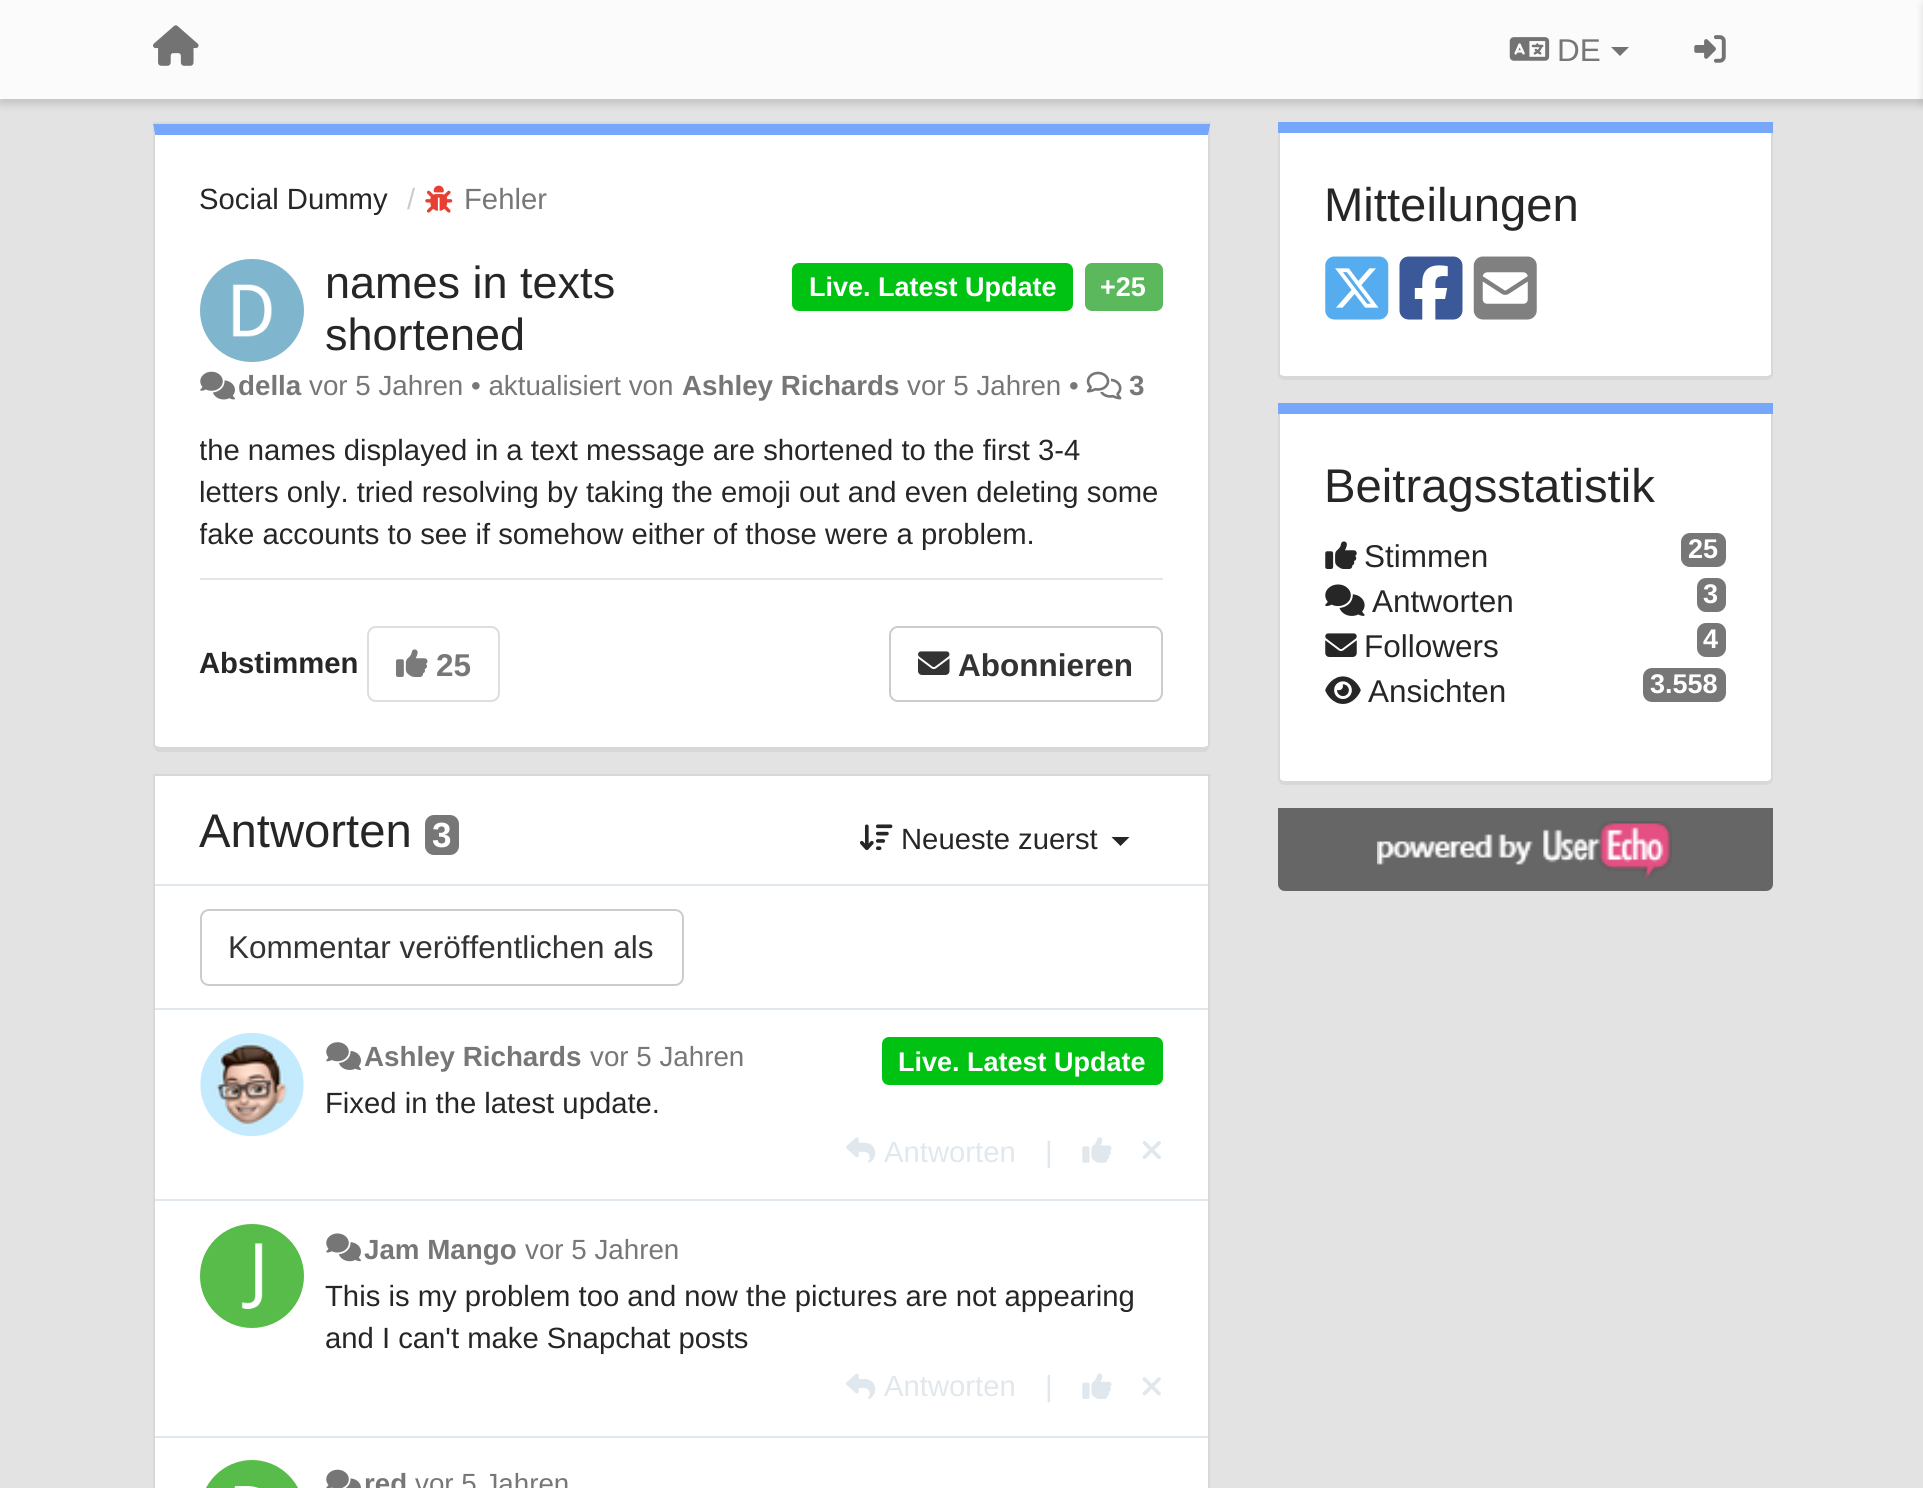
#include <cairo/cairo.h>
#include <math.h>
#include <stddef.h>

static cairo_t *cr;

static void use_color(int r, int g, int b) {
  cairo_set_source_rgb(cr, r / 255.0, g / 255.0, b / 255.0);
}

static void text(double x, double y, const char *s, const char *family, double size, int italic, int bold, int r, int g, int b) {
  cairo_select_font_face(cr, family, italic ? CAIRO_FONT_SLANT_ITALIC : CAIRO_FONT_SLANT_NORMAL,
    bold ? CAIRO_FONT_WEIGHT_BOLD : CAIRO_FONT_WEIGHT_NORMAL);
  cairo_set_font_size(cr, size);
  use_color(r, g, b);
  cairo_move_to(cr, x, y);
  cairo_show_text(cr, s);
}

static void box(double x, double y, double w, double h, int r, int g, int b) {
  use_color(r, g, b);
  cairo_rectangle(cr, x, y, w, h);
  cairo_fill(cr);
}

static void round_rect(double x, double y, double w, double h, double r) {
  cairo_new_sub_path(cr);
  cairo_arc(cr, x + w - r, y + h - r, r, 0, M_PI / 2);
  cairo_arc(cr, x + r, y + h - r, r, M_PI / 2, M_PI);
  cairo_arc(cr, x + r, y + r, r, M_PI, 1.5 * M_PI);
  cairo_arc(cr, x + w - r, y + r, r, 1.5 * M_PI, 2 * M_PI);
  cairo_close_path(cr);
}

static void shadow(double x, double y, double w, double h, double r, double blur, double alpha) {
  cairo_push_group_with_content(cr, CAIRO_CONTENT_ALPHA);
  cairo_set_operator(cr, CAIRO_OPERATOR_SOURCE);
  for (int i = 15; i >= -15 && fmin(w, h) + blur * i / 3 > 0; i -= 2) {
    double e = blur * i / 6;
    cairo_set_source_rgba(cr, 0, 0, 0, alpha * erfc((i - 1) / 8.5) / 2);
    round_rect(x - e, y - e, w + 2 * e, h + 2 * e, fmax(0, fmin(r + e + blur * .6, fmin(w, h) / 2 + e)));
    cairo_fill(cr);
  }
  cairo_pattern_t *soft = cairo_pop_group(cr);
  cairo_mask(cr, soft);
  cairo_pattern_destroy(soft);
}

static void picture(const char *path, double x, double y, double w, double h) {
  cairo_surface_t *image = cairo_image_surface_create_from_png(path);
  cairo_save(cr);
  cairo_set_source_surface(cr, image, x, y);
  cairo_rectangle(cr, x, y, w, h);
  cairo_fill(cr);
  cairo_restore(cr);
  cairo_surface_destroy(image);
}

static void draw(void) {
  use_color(227, 227, 227);
  cairo_paint(cr);
  use_color(0, 0, 0);
  shadow(0, 5, 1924, 99, 0, 4.5, 0.15);
  box(0, 0, 1923, 99, 251, 251, 251);
  picture("img_01.png", 153, 25, 46, 41);
  picture("img_02.png", 1509, 37, 41, 24);
  use_color(115, 115, 115);
  cairo_new_path(cr);
  cairo_move_to(cr, 1611, 47);
  cairo_line_to(cr, 1629, 47);
  cairo_line_to(cr, 1620, 56);
  cairo_close_path(cr);
  cairo_fill(cr);
  picture("img_03.png", 1694, 35, 32, 28);
  use_color(0, 0, 0);
  shadow(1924, 5, 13, 99, 0, 4.5, 0.15);
  box(153, 122, 1058, 2, 216, 216, 216);
  use_color(255, 255, 255);
  cairo_new_path(cr);
  cairo_move_to(cr, 155, 135);
  cairo_line_to(cr, 1208, 135);
  cairo_line_to(cr, 1208, 745);
  cairo_curve_to(cr, 1208, 746, 1206, 747, 1204, 747);
  cairo_line_to(cr, 160, 747);
  cairo_curve_to(cr, 157, 747, 155, 746, 155, 745);
  cairo_close_path(cr);
  cairo_fill(cr);
  use_color(118, 167, 250);
  cairo_new_path(cr);
  cairo_move_to(cr, 1210, 126);
  cairo_line_to(cr, 1210, 124);
  cairo_line_to(cr, 153, 124);
  cairo_line_to(cr, 155, 135);
  cairo_line_to(cr, 1208, 135);
  cairo_line_to(cr, 1208, 136);
  cairo_close_path(cr);
  cairo_fill(cr);
  use_color(216, 216, 216);
  cairo_new_path(cr);
  cairo_move_to(cr, 1209, 748);
  cairo_line_to(cr, 1210, 745);
  cairo_line_to(cr, 1210, 126);
  cairo_line_to(cr, 1208, 136);
  cairo_line_to(cr, 1208, 745);
  cairo_line_to(cr, 1208, 746);
  cairo_close_path(cr);
  cairo_fill(cr);
  cairo_new_path(cr);
  cairo_move_to(cr, 158, 752);
  cairo_line_to(cr, 154, 749);
  cairo_line_to(cr, 156, 746);
  cairo_line_to(cr, 160, 747);
  cairo_line_to(cr, 1204, 747);
  cairo_line_to(cr, 1208, 746);
  cairo_line_to(cr, 1209, 748);
  cairo_line_to(cr, 1206, 752);
  cairo_close_path(cr);
  cairo_fill(cr);
  cairo_new_path(cr);
  cairo_move_to(cr, 155, 135);
  cairo_line_to(cr, 155, 745);
  cairo_line_to(cr, 156, 746);
  cairo_line_to(cr, 154, 749);
  cairo_line_to(cr, 153, 745);
  cairo_line_to(cr, 153, 124);
  cairo_close_path(cr);
  cairo_fill(cr);
  picture("img_04.png", 425, 185, 28, 28);
  use_color(127, 182, 206);
  round_rect(200, 259, 104, 103, 51.5);
  cairo_fill(cr);
  picture("img_05.png", 232, 284, 40, 53);
  use_color(0, 194, 19);
  round_rect(792, 263, 281, 48, 7);
  cairo_fill(cr);
  use_color(92, 184, 92);
  round_rect(1085, 263, 78, 48, 7);
  cairo_fill(cr);
  picture("img_06.png", 200, 371, 35, 29);
  picture("img_07.png", 1086, 371, 36, 29);
  box(200, 578, 963, 2, 229, 229, 229);
  round_rect(368, 627, 131, 74, 8);
  use_color(222, 222, 222);
  cairo_stroke(cr);
  picture("img_08.png", 396, 649, 32, 28);
  round_rect(890, 627, 272, 74, 8);
  use_color(204, 204, 204);
  cairo_stroke(cr);
  picture("img_09.png", 918, 651, 32, 24);
  box(153, 774, 1058, 2, 216, 216, 216);
  box(155, 776, 1053, 712, 255, 255, 255);
  use_color(216, 216, 216);
  cairo_set_fill_rule(cr, CAIRO_FILL_RULE_EVEN_ODD);
  cairo_new_path(cr);
  cairo_move_to(cr, 153, 776);
  cairo_line_to(cr, 1210, 776);
  cairo_line_to(cr, 1210, 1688);
  cairo_curve_to(cr, 1210, 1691, 1207, 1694, 1204, 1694);
  cairo_line_to(cr, 160, 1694);
  cairo_curve_to(cr, 156, 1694, 153, 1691, 153, 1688);
  cairo_close_path(cr);
  cairo_move_to(cr, 155, 776);
  cairo_line_to(cr, 1208, 776);
  cairo_line_to(cr, 1208, 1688);
  cairo_curve_to(cr, 1208, 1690, 1206, 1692, 1204, 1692);
  cairo_line_to(cr, 160, 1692);
  cairo_curve_to(cr, 157, 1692, 155, 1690, 155, 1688);
  cairo_close_path(cr);
  cairo_fill(cr);
  use_color(119, 119, 119);
  round_rect(425, 815, 34, 40, 9);
  cairo_fill(cr);
  picture("img_10.png", 860, 824, 33, 27);
  use_color(38, 38, 38);
  cairo_set_fill_rule(cr, CAIRO_FILL_RULE_WINDING);
  cairo_new_path(cr);
  cairo_move_to(cr, 1111.5, 837);
  cairo_line_to(cr, 1129.5, 837);
  cairo_line_to(cr, 1120.5, 846);
  cairo_close_path(cr);
  cairo_fill(cr);
  box(155, 884, 1053, 2, 225, 232, 237);
  box(155, 1008, 1053, 2, 225, 232, 237);
  round_rect(201, 910, 482, 75, 8);
  use_color(204, 204, 204);
  cairo_stroke(cr);
  box(155, 1199, 1053, 2, 225, 232, 237);
  picture("img_11.png", 200, 1033, 104, 103);
  picture("img_12.png", 326, 1042, 35, 28);
  use_color(0, 194, 19);
  round_rect(882, 1037, 281, 48, 7);
  cairo_fill(cr);
  picture("img_13.png", 846, 1137, 30, 26);
  picture("img_14.png", 1082, 1137, 30, 26);
  picture("img_15.png", 1142, 1141, 19, 18);
  box(155, 1436, 1053, 2, 225, 232, 237);
  use_color(88, 188, 74);
  cairo_arc(cr, 252, 1276, 52, 0, 2 * M_PI);
  cairo_fill(cr);
  picture("img_16.png", 241, 1243, 22, 66);
  picture("img_17.png", 326, 1233, 35, 29);
  picture("img_18.png", 846, 1373, 30, 26);
  picture("img_19.png", 1082, 1373, 30, 26);
  picture("img_20.png", 1142, 1377, 19, 19);
  cairo_new_path(cr);
  cairo_move_to(cr, 252, 1460);
  cairo_curve_to(cr, 280.5, 1460, 304, 1483.5, 304, 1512);
  cairo_line_to(cr, 304, 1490);
  cairo_line_to(cr, 200, 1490);
  cairo_line_to(cr, 200, 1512);
  cairo_curve_to(cr, 200, 1483.5, 223.5, 1460, 252, 1460);
  cairo_close_path(cr);
  cairo_fill(cr);
  picture("img_21.png", 234, 1486, 25, 2);
  picture("img_22.png", 326, 1469, 35, 19);
  box(1278, 122, 495, 11, 118, 167, 250);
  use_color(255, 255, 255);
  cairo_new_path(cr);
  cairo_move_to(cr, 1280, 133);
  cairo_line_to(cr, 1771, 133);
  cairo_line_to(cr, 1771, 374);
  cairo_curve_to(cr, 1771, 375, 1769, 376, 1766, 376);
  cairo_line_to(cr, 1285, 376);
  cairo_curve_to(cr, 1282, 376, 1280, 375, 1280, 374);
  cairo_close_path(cr);
  cairo_fill(cr);
  use_color(216, 216, 216);
  cairo_set_fill_rule(cr, CAIRO_FILL_RULE_EVEN_ODD);
  cairo_new_path(cr);
  cairo_move_to(cr, 1278, 133);
  cairo_line_to(cr, 1773, 133);
  cairo_line_to(cr, 1773, 374);
  cairo_curve_to(cr, 1773, 377, 1770, 380, 1766, 380);
  cairo_line_to(cr, 1285, 380);
  cairo_curve_to(cr, 1281, 380, 1278, 377, 1278, 374);
  cairo_close_path(cr);
  cairo_move_to(cr, 1280, 133);
  cairo_line_to(cr, 1771, 133);
  cairo_line_to(cr, 1771, 374);
  cairo_curve_to(cr, 1771, 375, 1769, 376, 1766, 376);
  cairo_line_to(cr, 1285, 376);
  cairo_curve_to(cr, 1282, 376, 1280, 375, 1280, 374);
  cairo_close_path(cr);
  cairo_fill(cr);
  picture("img_23.png", 1325, 256, 64, 64);
  picture("img_24.png", 1399, 256, 64, 64);
  picture("img_25.png", 1473, 256, 64, 64);
  box(1278, 403, 495, 11, 118, 167, 250);
  use_color(255, 255, 255);
  cairo_set_fill_rule(cr, CAIRO_FILL_RULE_WINDING);
  cairo_new_path(cr);
  cairo_move_to(cr, 1280, 414);
  cairo_line_to(cr, 1771, 414);
  cairo_line_to(cr, 1771, 778);
  cairo_curve_to(cr, 1771, 780, 1769, 781, 1766, 781);
  cairo_line_to(cr, 1285, 781);
  cairo_curve_to(cr, 1282, 781, 1280, 780, 1280, 778);
  cairo_close_path(cr);
  cairo_fill(cr);
  use_color(216, 216, 216);
  cairo_set_fill_rule(cr, CAIRO_FILL_RULE_EVEN_ODD);
  cairo_new_path(cr);
  cairo_move_to(cr, 1278, 414);
  cairo_line_to(cr, 1773, 414);
  cairo_line_to(cr, 1773, 778);
  cairo_curve_to(cr, 1773, 782, 1770, 785, 1766, 785);
  cairo_line_to(cr, 1285, 785);
  cairo_curve_to(cr, 1281, 785, 1278, 782, 1278, 778);
  cairo_close_path(cr);
  cairo_move_to(cr, 1280, 414);
  cairo_line_to(cr, 1771, 414);
  cairo_line_to(cr, 1771, 778);
  cairo_curve_to(cr, 1771, 780, 1769, 781, 1766, 781);
  cairo_line_to(cr, 1285, 781);
  cairo_curve_to(cr, 1282, 781, 1280, 780, 1280, 778);
  cairo_close_path(cr);
  cairo_fill(cr);
  picture("img_26.png", 1325, 541, 32, 28);
  use_color(119, 119, 119);
  round_rect(1681, 533, 45, 34, 9);
  cairo_fill(cr);
  picture("img_27.png", 1325, 584, 40, 32);
  round_rect(1697, 578, 29, 34, 9);
  cairo_fill(cr);
  picture("img_28.png", 1325, 633, 32, 24);
  round_rect(1697, 623, 29, 34, 9);
  cairo_fill(cr);
  picture("img_29.png", 1325, 676, 36, 28);
  round_rect(1643, 668, 83, 34, 9);
  cairo_fill(cr);
  use_color(102, 102, 102);
  cairo_new_path(cr);
  cairo_move_to(cr, 1278, 808);
  cairo_line_to(cr, 1773, 808);
  cairo_line_to(cr, 1773, 884);
  cairo_curve_to(cr, 1773, 888, 1770, 891, 1766, 891);
  cairo_line_to(cr, 1285, 891);
  cairo_curve_to(cr, 1281, 891, 1278, 888, 1278, 884);
  cairo_close_path(cr);
  cairo_fill(cr);
  picture("img_30.png", 1377, 821, 295, 57);
  text(1557, 61, "DE", "Liberation Sans", 31.5, 0, 0, 119, 119, 119);
  text(199, 209, "Social Dummy", "Liberation Sans", 29.25, 0, 0, 38, 38, 38);
  text(407, 209, "/", "Liberation Sans", 29.25, 0, 0, 204, 204, 204);
  text(464, 209, "Fehler", "Liberation Sans", 29.25, 0, 0, 119, 119, 119);
  text(325, 298, "names in texts", "Liberation Sans", 45, 0, 0, 38, 38, 38);
  text(325, 350, "shortened", "Liberation Sans", 45, 0, 0, 38, 38, 38);
  text(809, 296, "Live. Latest Update", "Liberation Sans", 27, 0, 1, 255, 255, 255);
  text(1100, 296, "+25", "Liberation Sans", 27, 0, 1, 255, 255, 255);
  text(238, 395, "della", "Liberation Sans", 27.75, 0, 1, 119, 119, 119);
  text(309, 395, "vor 5 Jahren • aktualisiert von", "Liberation Sans", 27.75, 0, 0, 119, 119, 119);
  text(682, 395, "Ashley Richards", "Liberation Sans", 27.75, 0, 1, 119, 119, 119);
  text(907, 395, "vor 5 Jahren •", "Liberation Sans", 27.75, 0, 0, 119, 119, 119);
  text(1129, 395, "3", "Liberation Sans", 27.75, 0, 1, 119, 119, 119);
  cairo_save(cr);
  cairo_set_fill_rule(cr, CAIRO_FILL_RULE_WINDING);
  cairo_rectangle(cr, 200, 432, 963, 124);
  cairo_clip(cr);
  text(199, 460, "the names displayed in a text message are shortened to the first 3-4", "Liberation Sans", 29.25, 0, 0, 38, 38, 38);
  cairo_restore(cr);
  text(199, 502, "letters only. tried resolving by taking the emoji out and even deleting some", "Liberation Sans", 29.25, 0, 0, 38, 38, 38);
  cairo_save(cr);
  cairo_set_fill_rule(cr, CAIRO_FILL_RULE_WINDING);
  cairo_rectangle(cr, 200, 432, 963, 124);
  cairo_clip(cr);
  text(199, 544, "fake accounts to see if somehow either of those were a problem.", "Liberation Sans", 29.25, 0, 0, 38, 38, 38);
  cairo_restore(cr);
  text(199, 673, "Abstimmen", "Liberation Sans", 29.25, 0, 1, 38, 38, 38);
  text(436, 676, "25", "Liberation Sans", 31.5, 0, 1, 119, 119, 119);
  text(958, 676, "Abonnieren", "Liberation Sans", 31.5, 0, 1, 51, 51, 51);
  text(199, 847, "Antworten", "Liberation Sans", 47.25, 0, 0, 38, 38, 38);
  text(432, 847, "3", "Liberation Sans", 35, 0, 1, 255, 255, 255);
  text(901, 849, "Neueste zuerst", "Liberation Sans", 29.25, 0, 0, 38, 38, 38);
  text(228, 958, "Kommentar veröffentlichen als", "Liberation Sans", 31.5, 0, 0, 51, 51, 51);
  text(364, 1066, "Ashley Richards", "Liberation Sans", 27.75, 0, 1, 119, 119, 119);
  text(590, 1066, "vor 5 Jahren", "Liberation Sans", 27.75, 0, 0, 119, 119, 119);
  text(898, 1071, "Live. Latest Update", "Liberation Sans", 27, 0, 1, 255, 255, 255);
  text(325, 1113, "Fixed in the latest update.", "Liberation Sans", 29.25, 0, 0, 38, 38, 38);
  text(884, 1162, "Antworten", "Liberation Sans", 29.25, 0, 0, 225, 232, 237);
  text(1045, 1162, "|", "Liberation Sans", 29.25, 0, 0, 225, 232, 237);
  text(364, 1259, "Jam Mango", "Liberation Sans", 27.75, 0, 1, 119, 119, 119);
  text(525, 1259, "vor 5 Jahren", "Liberation Sans", 27.75, 0, 0, 119, 119, 119);
  text(325, 1306, "This is my problem too and now the pictures are not appearing", "Liberation Sans", 29.25, 0, 0, 38, 38, 38);
  text(325, 1348, "and I can't make Snapchat posts", "Liberation Sans", 29.25, 0, 0, 38, 38, 38);
  text(884, 1396, "Antworten", "Liberation Sans", 29.25, 0, 0, 225, 232, 237);
  text(1045, 1396, "|", "Liberation Sans", 29.25, 0, 0, 225, 232, 237);
  text(364, 1493, "red", "Liberation Sans", 27.75, 0, 1, 119, 119, 119);
  text(415, 1493, "vor 5 Jahren", "Liberation Sans", 27.75, 0, 0, 119, 119, 119);
  text(1324, 221, "Mitteilungen", "Liberation Sans", 47.25, 0, 0, 38, 38, 38);
  text(1324, 502, "Beitragsstatistik", "Liberation Sans", 47.25, 0, 0, 38, 38, 38);
  text(1364, 567, "Stimmen", "Liberation Sans", 31.5, 0, 0, 38, 38, 38);
  text(1688, 558, "25", "Liberation Sans", 27, 0, 1, 255, 255, 255);
  text(1372, 612, "Antworten", "Liberation Sans", 31.5, 0, 0, 38, 38, 38);
  text(1703, 603, "3", "Liberation Sans", 27, 0, 1, 255, 255, 255);
  text(1364, 657, "Followers", "Liberation Sans", 31.5, 0, 0, 38, 38, 38);
  text(1703, 648, "4", "Liberation Sans", 27, 0, 1, 255, 255, 255);
  text(1368, 702, "Ansichten", "Liberation Sans", 31.5, 0, 0, 38, 38, 38);
  text(1650, 693, "3.558", "Liberation Sans", 27, 0, 1, 255, 255, 255);
}

int main(void) {
  cairo_surface_t *surface = cairo_image_surface_create(CAIRO_FORMAT_RGB24, 1923, 1488);
  cr = cairo_create(surface);
  cairo_font_options_t *options = cairo_font_options_create();
  cairo_font_options_set_hint_metrics(options, CAIRO_HINT_METRICS_OFF);
  cairo_font_options_set_hint_style(options, CAIRO_HINT_STYLE_NONE);
  cairo_set_font_options(cr, options);
  cairo_set_miter_limit(cr, 4);
  draw();
  cairo_surface_write_to_png(surface, "out.png");
  cairo_font_options_destroy(options);
  cairo_destroy(cr);
  cairo_surface_destroy(surface);
  return 0;
}
